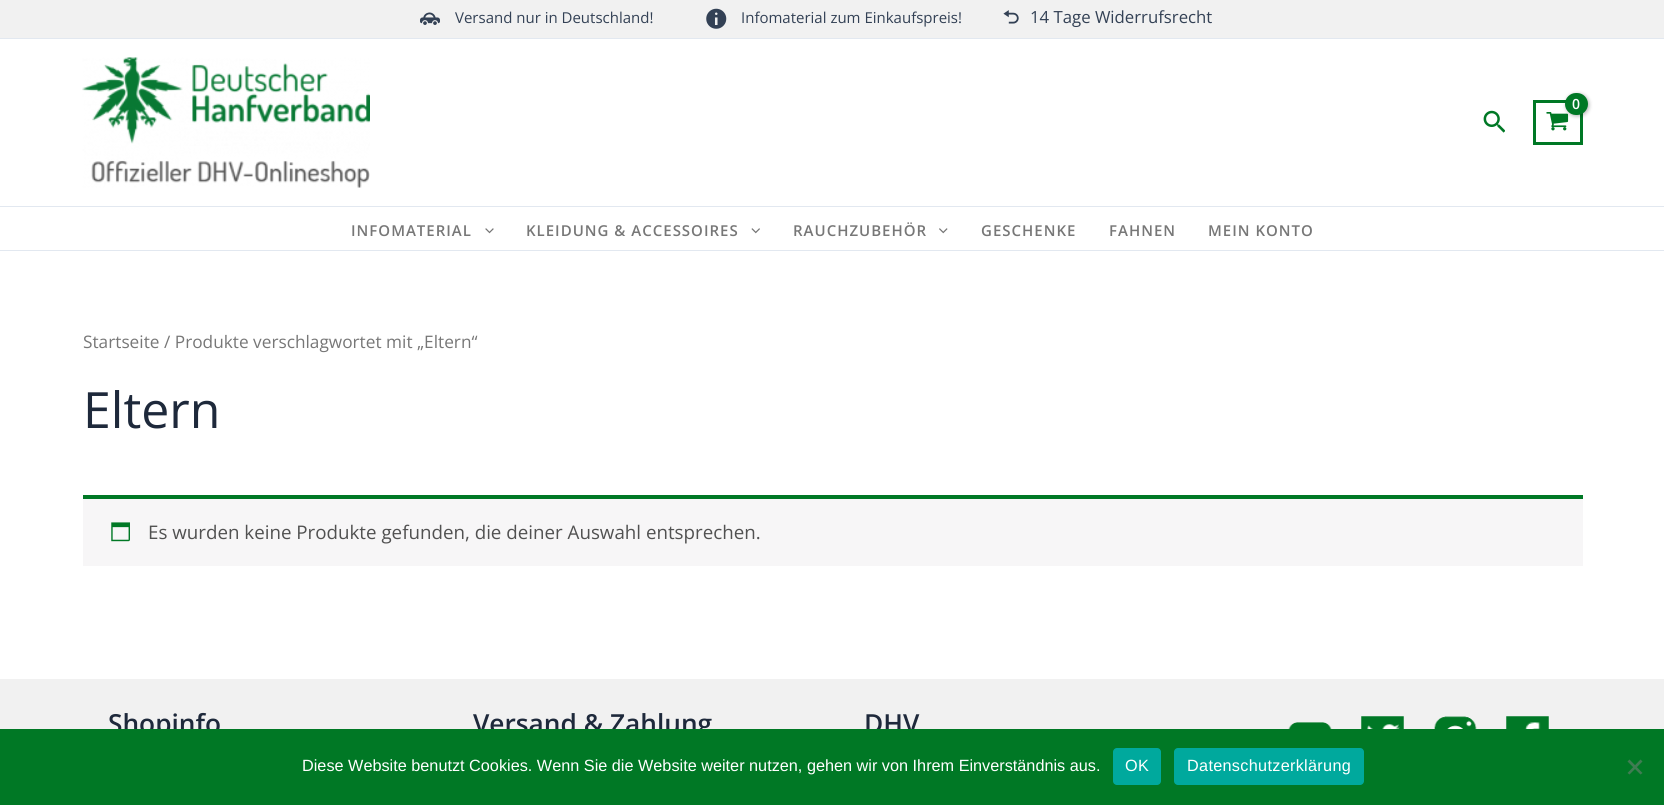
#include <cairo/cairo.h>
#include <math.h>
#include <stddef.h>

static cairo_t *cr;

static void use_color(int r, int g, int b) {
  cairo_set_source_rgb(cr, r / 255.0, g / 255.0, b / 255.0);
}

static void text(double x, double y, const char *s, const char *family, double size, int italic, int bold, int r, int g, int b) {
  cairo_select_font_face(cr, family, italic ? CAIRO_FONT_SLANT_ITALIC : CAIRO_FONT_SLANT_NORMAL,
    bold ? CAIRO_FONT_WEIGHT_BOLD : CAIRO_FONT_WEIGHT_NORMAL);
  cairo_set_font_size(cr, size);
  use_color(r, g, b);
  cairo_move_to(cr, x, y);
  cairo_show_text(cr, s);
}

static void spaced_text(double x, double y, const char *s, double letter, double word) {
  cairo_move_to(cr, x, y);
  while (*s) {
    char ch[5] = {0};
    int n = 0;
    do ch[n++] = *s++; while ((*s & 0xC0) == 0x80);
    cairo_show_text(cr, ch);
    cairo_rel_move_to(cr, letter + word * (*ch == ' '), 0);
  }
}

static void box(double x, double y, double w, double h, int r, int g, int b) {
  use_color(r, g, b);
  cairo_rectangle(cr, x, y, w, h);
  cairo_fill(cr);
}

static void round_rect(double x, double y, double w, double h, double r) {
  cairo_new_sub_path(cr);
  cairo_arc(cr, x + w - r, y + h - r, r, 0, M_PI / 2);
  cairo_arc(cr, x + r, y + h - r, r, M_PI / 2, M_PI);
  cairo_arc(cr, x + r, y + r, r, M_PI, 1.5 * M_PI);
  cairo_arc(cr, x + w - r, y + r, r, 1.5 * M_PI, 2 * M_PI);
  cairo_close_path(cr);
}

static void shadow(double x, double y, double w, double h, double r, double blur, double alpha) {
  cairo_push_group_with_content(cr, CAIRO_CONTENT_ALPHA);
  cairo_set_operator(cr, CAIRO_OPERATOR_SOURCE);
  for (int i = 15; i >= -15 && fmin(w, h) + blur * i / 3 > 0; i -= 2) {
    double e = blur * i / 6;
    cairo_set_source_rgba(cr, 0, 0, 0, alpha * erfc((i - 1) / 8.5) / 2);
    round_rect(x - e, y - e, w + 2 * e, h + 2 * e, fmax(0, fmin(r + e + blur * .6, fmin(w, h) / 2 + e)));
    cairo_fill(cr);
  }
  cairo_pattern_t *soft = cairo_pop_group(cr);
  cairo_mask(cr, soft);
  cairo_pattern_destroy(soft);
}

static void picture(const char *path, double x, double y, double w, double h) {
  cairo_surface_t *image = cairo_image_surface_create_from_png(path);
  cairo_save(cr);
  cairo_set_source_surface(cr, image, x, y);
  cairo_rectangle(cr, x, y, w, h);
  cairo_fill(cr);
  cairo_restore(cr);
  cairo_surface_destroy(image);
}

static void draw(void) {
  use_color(255, 255, 255);
  cairo_paint(cr);
  box(0, 0, 1664, 38, 241, 241, 241);
  box(0, 38, 1664, 1, 226, 232, 240);
  picture("img_01.png", 420, 12, 20, 13);
  picture("img_02.png", 706, 8, 21, 21);
  picture("img_03.png", 1003, 10, 16, 14);
  box(0, 206, 1664, 1, 226, 232, 240);
  picture("img_04.png", 82, 57, 288, 131);
  cairo_rectangle(cr, 1534.5, 101.5, 47, 42);
  use_color(0, 120, 37);
  cairo_set_line_width(cr, 3);
  cairo_stroke(cr);
  picture("img_05.png", 1546, 112, 23, 19);
  use_color(0, 0, 0);
  shadow(1566, 94, 23, 22, 11, 2, 0.3);
  use_color(0, 120, 37);
  round_rect(1565, 93, 23, 22, 11);
  cairo_fill(cr);
  picture("img_06.png", 1483, 110, 22, 23);
  box(0, 250, 1664, 1, 226, 232, 240);
  picture("img_07.png", 485, 228, 9, 6);
  picture("img_08.png", 751, 228, 9, 6);
  picture("img_09.png", 939, 228, 9, 6);
  box(83, 499, 1500, 67, 247, 246, 247);
  box(83, 495, 1500, 4, 0, 120, 37);
  picture("img_10.png", 111, 522, 19, 20);
  box(0, 679, 1664, 50, 241, 241, 241);
  picture("img_11.png", 1288, 722, 44, 7);
  picture("img_12.png", 1361, 716, 43, 13);
  picture("img_13.png", 1434, 716, 43, 13);
  picture("img_14.png", 1506, 716, 43, 13);
  text(455, 23, "Versand nur in Deutschland!", "Open Sans", 15, 0, 0, 51, 65, 85);
  text(741, 23, "Infomaterial zum Einkaufspreis!", "Open Sans", 15, 0, 0, 51, 65, 85);
  text(1030, 23, "14 Tage Widerrufsrecht", "Open Sans", 16.75, 0, 0, 51, 65, 85);
  cairo_select_font_face(cr, "Open Sans SemiBold", CAIRO_FONT_SLANT_NORMAL, CAIRO_FONT_WEIGHT_NORMAL);
  cairo_set_font_size(cr, 14);
  use_color(255, 255, 255);
  spaced_text(1572, 109, "0", -1, 0);
  cairo_set_font_size(cr, 15);
  use_color(119, 119, 119);
  spaced_text(351, 236, "INFOMATERIAL", 1, 0);
  spaced_text(526, 236, "KLEIDUNG & ACCESSOIRES", 1, 0);
  spaced_text(793, 236, "RAUCHZUBEHÖR", 1, 0);
  spaced_text(981, 236, "GESCHENKE", 1, 0);
  spaced_text(1109, 236, "FAHNEN", 1, 0);
  spaced_text(1208, 236, "MEIN KONTO", 1, 0);
  text(83, 348, "Startseite / Produkte verschlagwortet mit „Eltern“", "Open Sans", 17.25, 0, 0, 119, 119, 119);
  text(83, 428, "Eltern", "Open Sans", 50, 0, 0, 30, 41, 59);
  text(148, 539, "Es wurden keine Produkte gefunden, die deiner Auswahl entsprechen.", "Open Sans", 18.75, 0, 0, 81, 81, 81);
  text(108, 733, "Shopinfo", "Open Sans SemiBold", 26.25, 0, 0, 30, 41, 59);
  text(473, 733, "Versand & Zahlung", "Open Sans SemiBold", 26.25, 0, 0, 30, 41, 59);
  text(864, 733, "DHV", "Open Sans SemiBold", 26.25, 0, 0, 30, 41, 59);
  box(0, 729, 1664, 76, 0, 120, 37);
  text(302, 771, "Diese Website benutzt Cookies. Wenn Sie die Website weiter nutzen, gehen wir von Ihrem Einverständnis aus.", "Liberation Sans", 16.25, 0, 0, 255, 255, 255);
  use_color(0, 169, 157);
  round_rect(1113, 748, 48, 37, 4);
  cairo_fill(cr);
  use_color(255, 255, 255);
  spaced_text(1125, 771, "OK", 0.3, 0);
  use_color(0, 169, 157);
  round_rect(1174, 748, 190, 37, 4);
  cairo_fill(cr);
  use_color(255, 255, 255);
  spaced_text(1187, 771, "Datenschutzerklärung", 0.3, 0);
  use_color(64, 124, 83);
  cairo_new_path(cr);
  cairo_move_to(cr, 1640.5, 759.5);
  cairo_line_to(cr, 1642.5, 761.5);
  cairo_line_to(cr, 1629.5, 774.5);
  cairo_line_to(cr, 1627.5, 773);
  cairo_close_path(cr);
  cairo_fill(cr);
  cairo_new_path(cr);
  cairo_move_to(cr, 1627.5, 761.5);
  cairo_line_to(cr, 1629.5, 759.5);
  cairo_line_to(cr, 1642.5, 773);
  cairo_line_to(cr, 1640.5, 774.5);
  cairo_close_path(cr);
  cairo_fill(cr);
}

int main(void) {
  cairo_surface_t *surface = cairo_image_surface_create(CAIRO_FORMAT_RGB24, 1664, 805);
  cr = cairo_create(surface);
  cairo_font_options_t *options = cairo_font_options_create();
  cairo_font_options_set_hint_metrics(options, CAIRO_HINT_METRICS_OFF);
  cairo_font_options_set_hint_style(options, CAIRO_HINT_STYLE_NONE);
  cairo_set_font_options(cr, options);
  cairo_set_miter_limit(cr, 4);
  draw();
  cairo_surface_write_to_png(surface, "out.png");
  cairo_font_options_destroy(options);
  cairo_destroy(cr);
  cairo_surface_destroy(surface);
  return 0;
}
